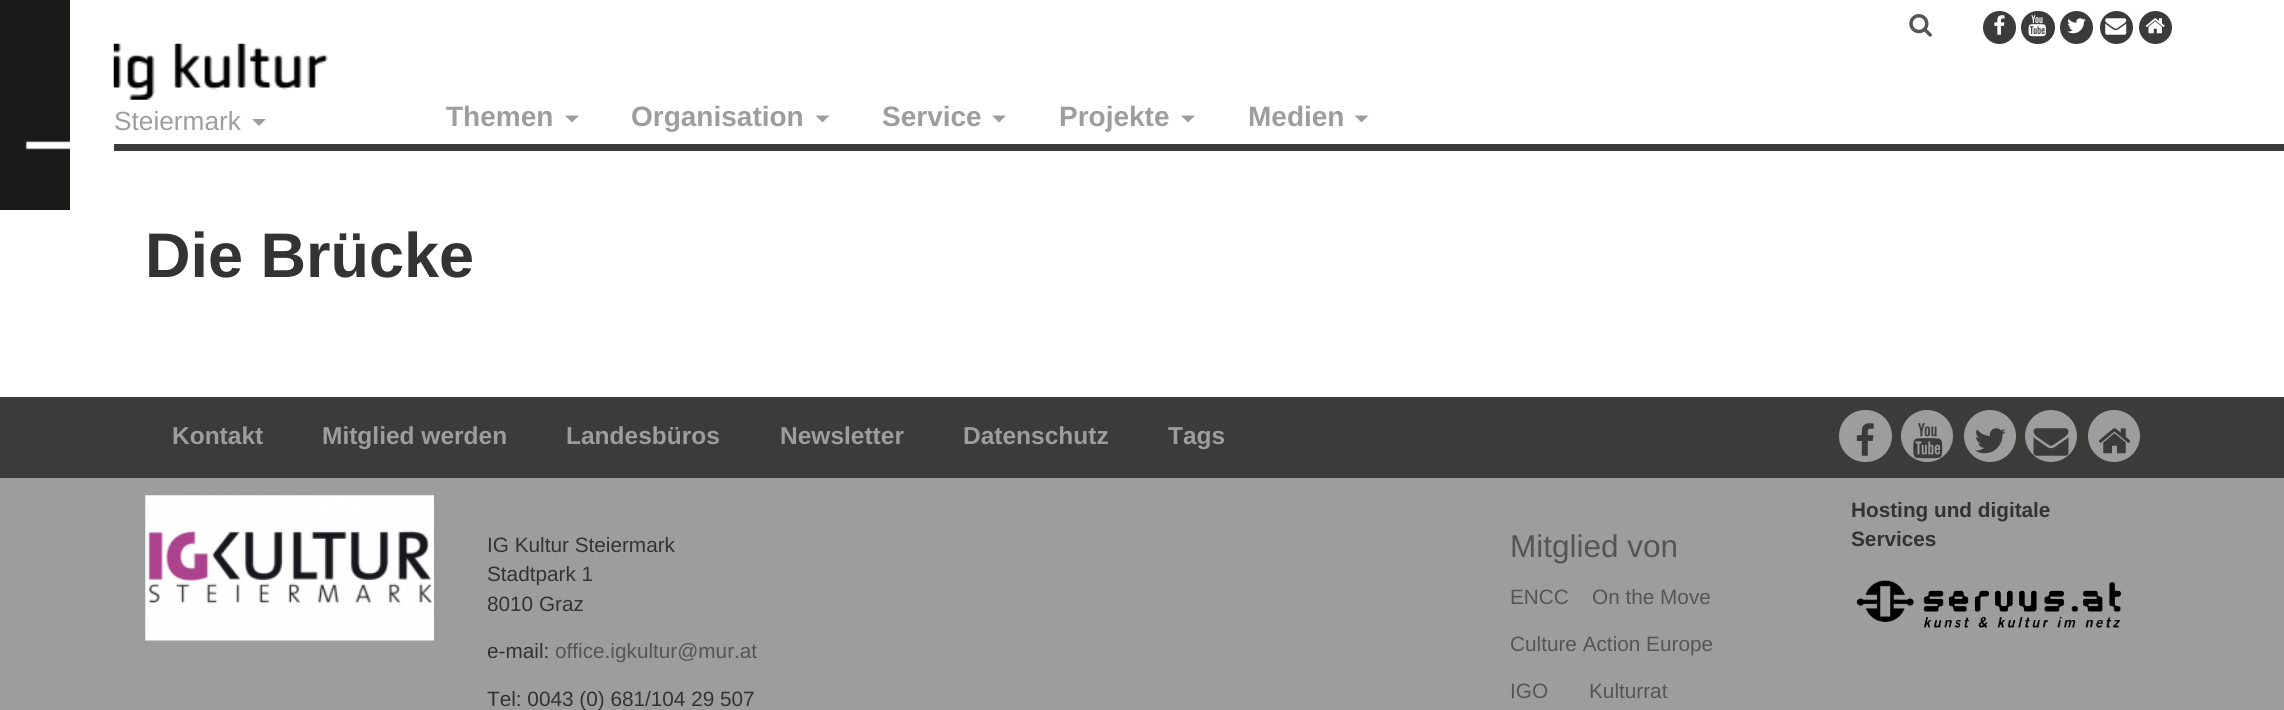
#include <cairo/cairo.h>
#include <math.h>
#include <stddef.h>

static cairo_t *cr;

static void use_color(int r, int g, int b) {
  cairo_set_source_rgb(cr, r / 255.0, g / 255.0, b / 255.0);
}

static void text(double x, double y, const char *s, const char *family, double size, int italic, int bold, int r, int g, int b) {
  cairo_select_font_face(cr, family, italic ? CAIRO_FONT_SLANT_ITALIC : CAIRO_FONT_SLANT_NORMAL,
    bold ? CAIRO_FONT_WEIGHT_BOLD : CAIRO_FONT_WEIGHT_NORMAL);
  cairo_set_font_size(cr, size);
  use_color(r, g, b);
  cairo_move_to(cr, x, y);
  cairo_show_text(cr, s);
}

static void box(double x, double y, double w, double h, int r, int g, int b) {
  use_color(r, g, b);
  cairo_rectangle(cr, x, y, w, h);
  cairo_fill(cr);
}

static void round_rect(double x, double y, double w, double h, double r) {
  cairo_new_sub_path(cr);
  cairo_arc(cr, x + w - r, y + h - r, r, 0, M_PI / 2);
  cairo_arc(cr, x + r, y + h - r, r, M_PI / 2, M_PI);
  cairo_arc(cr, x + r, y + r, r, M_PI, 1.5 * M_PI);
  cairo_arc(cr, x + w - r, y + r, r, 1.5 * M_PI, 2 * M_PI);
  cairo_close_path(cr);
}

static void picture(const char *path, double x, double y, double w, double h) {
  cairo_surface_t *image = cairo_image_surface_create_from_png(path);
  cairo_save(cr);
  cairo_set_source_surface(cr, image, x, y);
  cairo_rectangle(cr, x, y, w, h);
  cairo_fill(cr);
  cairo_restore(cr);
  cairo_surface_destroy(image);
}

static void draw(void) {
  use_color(255, 255, 255);
  cairo_paint(cr);
  box(114, 144, 2170, 7, 59, 59, 58);
  picture("img_01.png", 0, 0, 70, 210);
  picture("img_02.png", 1909, 14, 23, 23);
  cairo_arc(cr, 1999.5, 27.5, 16.5, 0, 2 * M_PI);
  cairo_fill(cr);
  picture("img_03.png", 1994, 15, 11, 20);
  round_rect(2021, 11, 34, 33, 16.5);
  cairo_fill(cr);
  picture("img_04.png", 2028, 15, 18, 22);
  cairo_arc(cr, 2076.5, 27.5, 16.5, 0, 2 * M_PI);
  cairo_fill(cr);
  picture("img_05.png", 2067, 18, 19, 16);
  cairo_arc(cr, 2116.5, 27.5, 16.5, 0, 2 * M_PI);
  cairo_fill(cr);
  picture("img_06.png", 2105, 18, 22, 17);
  cairo_arc(cr, 2155.5, 27.5, 16.5, 0, 2 * M_PI);
  cairo_fill(cr);
  picture("img_07.png", 2145, 18, 20, 16);
  picture("img_08.png", 113, 43, 215, 57);
  use_color(157, 157, 157);
  cairo_new_path(cr);
  cairo_move_to(cr, 252, 119);
  cairo_line_to(cr, 266, 119);
  cairo_line_to(cr, 259, 126);
  cairo_close_path(cr);
  cairo_fill(cr);
  cairo_new_path(cr);
  cairo_move_to(cr, 565, 115.5);
  cairo_line_to(cr, 579, 115.5);
  cairo_line_to(cr, 572, 122.5);
  cairo_close_path(cr);
  cairo_fill(cr);
  cairo_new_path(cr);
  cairo_move_to(cr, 815.5, 115.5);
  cairo_line_to(cr, 829.5, 115.5);
  cairo_line_to(cr, 822.5, 122.5);
  cairo_close_path(cr);
  cairo_fill(cr);
  cairo_new_path(cr);
  cairo_move_to(cr, 992, 115.5);
  cairo_line_to(cr, 1006, 115.5);
  cairo_line_to(cr, 999, 122.5);
  cairo_close_path(cr);
  cairo_fill(cr);
  cairo_new_path(cr);
  cairo_move_to(cr, 1181, 115.5);
  cairo_line_to(cr, 1195, 115.5);
  cairo_line_to(cr, 1188, 122.5);
  cairo_close_path(cr);
  cairo_fill(cr);
  cairo_new_path(cr);
  cairo_move_to(cr, 1354.5, 115.5);
  cairo_line_to(cr, 1368.5, 115.5);
  cairo_line_to(cr, 1361.5, 122.5);
  cairo_close_path(cr);
  cairo_fill(cr);
  box(0, 397, 2284, 81, 59, 59, 58);
  use_color(157, 157, 157);
  round_rect(1839, 410, 53, 52, 26);
  cairo_fill(cr);
  picture("img_09.png", 1856, 423, 18, 33);
  cairo_arc(cr, 1927, 436, 26, 0, 2 * M_PI);
  cairo_fill(cr);
  picture("img_10.png", 1913, 423, 30, 36);
  cairo_arc(cr, 1990, 436, 26, 0, 2 * M_PI);
  cairo_fill(cr);
  picture("img_11.png", 1975, 428, 31, 26);
  cairo_arc(cr, 2051, 436, 26, 0, 2 * M_PI);
  cairo_fill(cr);
  picture("img_12.png", 2033, 428, 36, 28);
  cairo_arc(cr, 2114, 436, 26, 0, 2 * M_PI);
  cairo_fill(cr);
  picture("img_13.png", 2098, 428, 33, 26);
  box(0, 478, 2284, 232, 157, 157, 157);
  picture("img_14.png", 145, 495, 289, 146);
  picture("img_15.png", 1856, 580, 266, 48);
  text(114, 130, "Steiermark", "Liberation Sans", 26.25, 0, 0, 157, 157, 157);
  text(446, 126, "Themen", "Liberation Sans", 28, 0, 1, 157, 157, 157);
  text(631, 126, "Organisation", "Liberation Sans", 28, 0, 1, 157, 157, 157);
  text(882, 126, "Service", "Liberation Sans", 28, 0, 1, 157, 157, 157);
  text(1059, 126, "Projekte", "Liberation Sans", 28, 0, 1, 157, 157, 157);
  text(1248, 126, "Medien", "Liberation Sans", 28, 0, 1, 157, 157, 157);
  text(145, 277, "Die Brücke", "Liberation Sans", 63, 0, 1, 51, 51, 51);
  text(172, 444, "Kontakt", "Liberation Sans", 24.5, 0, 1, 157, 157, 157);
  text(322, 444, "Mitglied werden", "Liberation Sans", 24.5, 0, 1, 157, 157, 157);
  text(566, 444, "Landesbüros", "Liberation Sans", 24.5, 0, 1, 157, 157, 157);
  text(780, 444, "Newsletter", "Liberation Sans", 24.5, 0, 1, 157, 157, 157);
  text(963, 444, "Datenschutz", "Liberation Sans", 24.5, 0, 1, 157, 157, 157);
  text(1168, 444, "Tags", "Liberation Sans", 24.5, 0, 1, 157, 157, 157);
  text(487, 552, "IG Kultur Steiermark", "Liberation Sans", 20.75, 0, 0, 51, 51, 51);
  text(487, 581, "Stadtpark 1", "Liberation Sans", 20.75, 0, 0, 51, 51, 51);
  text(487, 611, "8010 Graz", "Liberation Sans", 20.75, 0, 0, 51, 51, 51);
  text(487, 658, "e-mail:", "Liberation Sans", 20.75, 0, 0, 51, 51, 51);
  text(555, 658, "office.igkultur@mur.at", "Liberation Sans", 20.75, 0, 0, 85, 85, 85);
  text(487, 706, "Tel: 0043 (0) 681/104 29 507", "Liberation Sans", 20.75, 0, 0, 51, 51, 51);
  text(1851, 517, "Hosting und digitale", "Liberation Sans", 20.75, 0, 1, 51, 51, 51);
  text(1851, 546, "Services", "Liberation Sans", 20.75, 0, 1, 51, 51, 51);
  text(1510, 557, "Mitglied von", "Liberation Sans", 31.5, 0, 0, 85, 85, 85);
  text(1510, 604, "ENCC", "Liberation Sans", 20.75, 0, 0, 85, 85, 85);
  text(1592, 604, "On the Move", "Liberation Sans", 20.75, 0, 0, 85, 85, 85);
  text(1510, 651, "Culture Action Europe", "Liberation Sans", 20.75, 0, 0, 85, 85, 85);
  text(1510, 698, "IGO", "Liberation Sans", 20.75, 0, 0, 85, 85, 85);
  text(1589, 698, "Kulturrat", "Liberation Sans", 20.75, 0, 0, 85, 85, 85);
}

int main(void) {
  cairo_surface_t *surface = cairo_image_surface_create(CAIRO_FORMAT_RGB24, 2284, 710);
  cr = cairo_create(surface);
  cairo_font_options_t *options = cairo_font_options_create();
  cairo_font_options_set_hint_metrics(options, CAIRO_HINT_METRICS_OFF);
  cairo_font_options_set_hint_style(options, CAIRO_HINT_STYLE_NONE);
  cairo_set_font_options(cr, options);
  cairo_set_miter_limit(cr, 4);
  draw();
  cairo_surface_write_to_png(surface, "out.png");
  cairo_font_options_destroy(options);
  cairo_destroy(cr);
  cairo_surface_destroy(surface);
  return 0;
}
